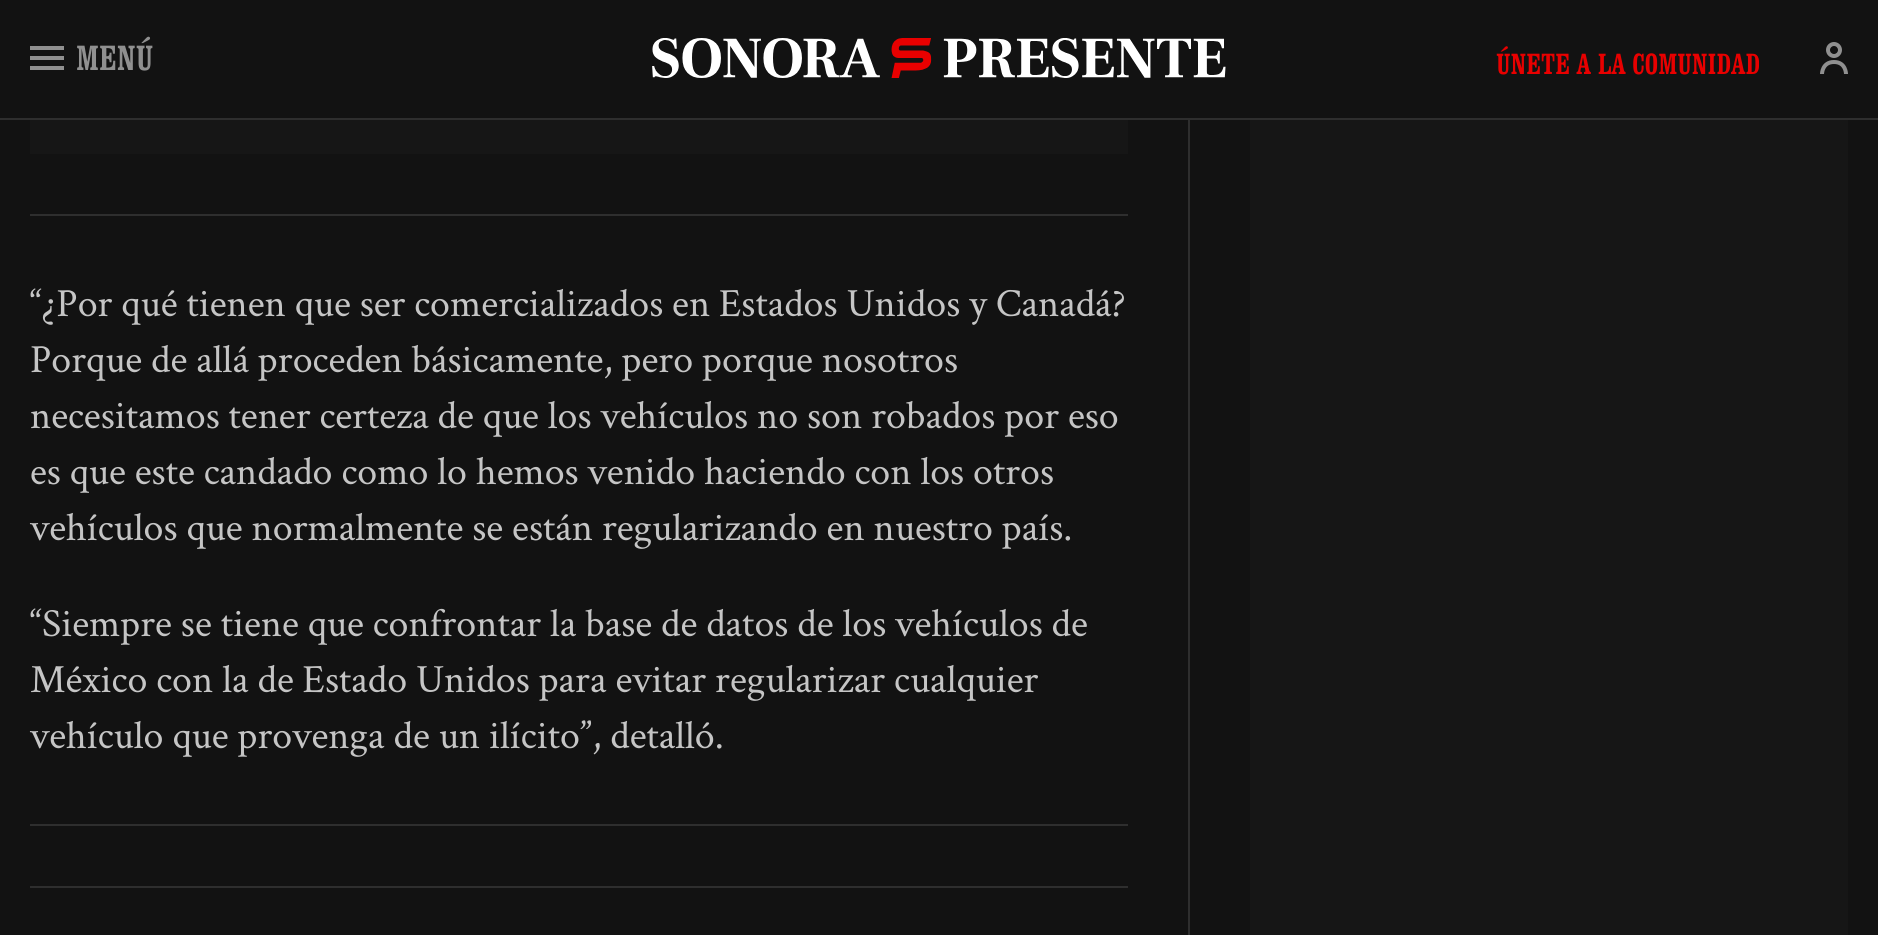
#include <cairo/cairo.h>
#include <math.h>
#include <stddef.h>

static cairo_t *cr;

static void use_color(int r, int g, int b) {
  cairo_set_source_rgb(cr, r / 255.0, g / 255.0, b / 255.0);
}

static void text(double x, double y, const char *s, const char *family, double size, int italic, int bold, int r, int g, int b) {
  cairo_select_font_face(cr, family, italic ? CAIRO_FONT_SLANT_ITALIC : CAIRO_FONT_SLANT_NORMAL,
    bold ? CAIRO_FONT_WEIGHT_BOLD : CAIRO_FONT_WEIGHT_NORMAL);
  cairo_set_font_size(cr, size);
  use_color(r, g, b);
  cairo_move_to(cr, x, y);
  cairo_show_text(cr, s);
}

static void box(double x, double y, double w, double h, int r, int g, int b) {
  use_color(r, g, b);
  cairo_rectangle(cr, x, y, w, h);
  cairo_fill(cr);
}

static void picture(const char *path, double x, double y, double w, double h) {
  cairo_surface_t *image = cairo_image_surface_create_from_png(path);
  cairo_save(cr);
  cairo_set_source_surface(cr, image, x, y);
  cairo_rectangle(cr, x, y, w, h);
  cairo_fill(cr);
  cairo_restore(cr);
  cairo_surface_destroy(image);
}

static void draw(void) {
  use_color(18, 18, 18);
  cairo_paint(cr);
  box(0, 118, 1878, 2, 46, 46, 46);
  box(30, 46, 34, 4, 144, 144, 144);
  box(30, 56, 34, 4, 144, 144, 144);
  box(30, 66, 34, 4, 144, 144, 144);
  picture("img_01.png", 652, 38, 574, 40);
  picture("img_02.png", 1820, 42, 28, 32);
  box(30, 120, 1098, 34, 22, 22, 22);
  box(30, 214, 1098, 2, 46, 46, 46);
  box(30, 824, 1098, 2, 46, 46, 46);
  box(30, 886, 1098, 2, 46, 46, 46);
  box(1188, 120, 2, 815, 46, 46, 46);
  box(1250, 120, 598, 815, 22, 22, 22);
  text(76, 70, "MENÚ", "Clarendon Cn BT", 36, 0, 0, 144, 144, 144);
  text(1496, 74, "ÚNETE A LA COMUNIDAD", "Clarendon Cn BT", 30, 0, 0, 232, 0, 0);
  text(30, 316, "“¿Por qué tienen que ser comercializados en Estados Unidos y Canadá?", "Crimson Text", 40, 0, 0, 197, 197, 197);
  text(30, 372, "Porque de allá proceden básicamente, pero porque nosotros", "Crimson Text", 40, 0, 0, 197, 197, 197);
  text(30, 428, "necesitamos tener certeza de que los vehículos no son robados por eso", "Crimson Text", 40, 0, 0, 197, 197, 197);
  text(30, 484, "es que este candado como lo hemos venido haciendo con los otros", "Crimson Text", 40, 0, 0, 197, 197, 197);
  text(30, 540, "vehículos que normalmente se están regularizando en nuestro país.", "Crimson Text", 40, 0, 0, 197, 197, 197);
  text(30, 636, "“Siempre se tiene que confrontar la base de datos de los vehículos de", "Crimson Text", 40, 0, 0, 197, 197, 197);
  text(30, 692, "México con la de Estado Unidos para evitar regularizar cualquier", "Crimson Text", 40, 0, 0, 197, 197, 197);
  text(30, 748, "vehículo que provenga de un ilícito”, detalló.", "Crimson Text", 40, 0, 0, 197, 197, 197);
}

int main(void) {
  cairo_surface_t *surface = cairo_image_surface_create(CAIRO_FORMAT_RGB24, 1878, 935);
  cr = cairo_create(surface);
  cairo_font_options_t *options = cairo_font_options_create();
  cairo_font_options_set_hint_metrics(options, CAIRO_HINT_METRICS_OFF);
  cairo_font_options_set_hint_style(options, CAIRO_HINT_STYLE_NONE);
  cairo_set_font_options(cr, options);
  cairo_set_miter_limit(cr, 4);
  draw();
  cairo_surface_write_to_png(surface, "out.png");
  cairo_font_options_destroy(options);
  cairo_destroy(cr);
  cairo_surface_destroy(surface);
  return 0;
}
